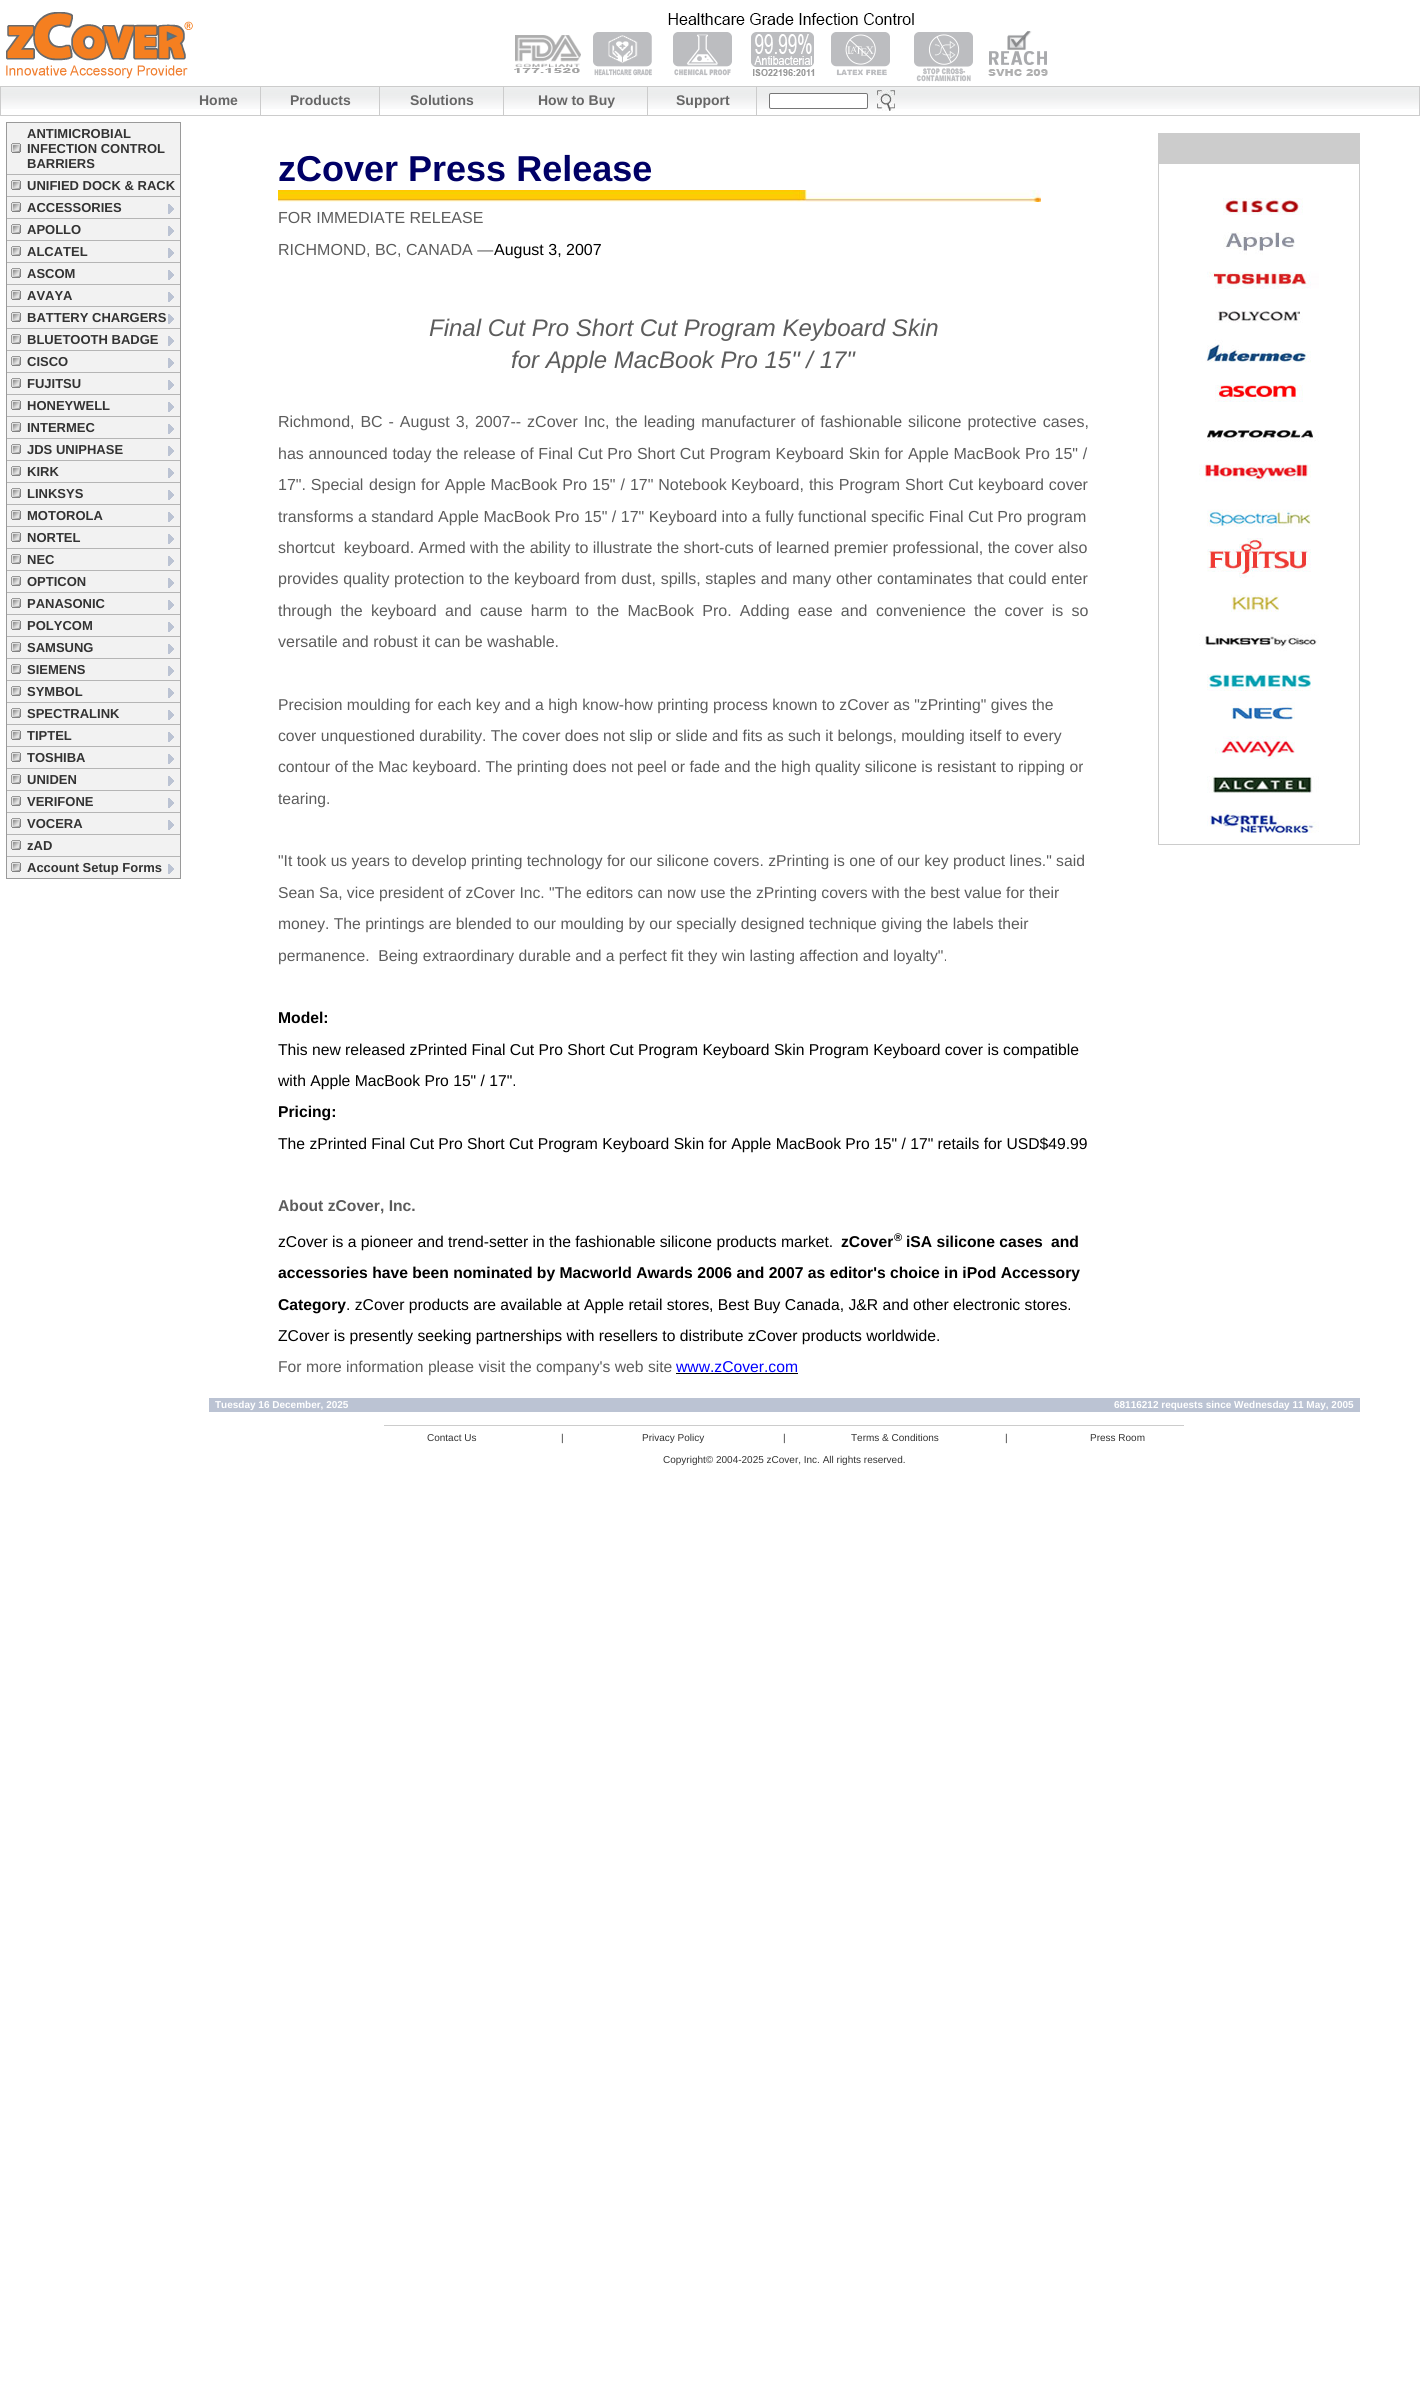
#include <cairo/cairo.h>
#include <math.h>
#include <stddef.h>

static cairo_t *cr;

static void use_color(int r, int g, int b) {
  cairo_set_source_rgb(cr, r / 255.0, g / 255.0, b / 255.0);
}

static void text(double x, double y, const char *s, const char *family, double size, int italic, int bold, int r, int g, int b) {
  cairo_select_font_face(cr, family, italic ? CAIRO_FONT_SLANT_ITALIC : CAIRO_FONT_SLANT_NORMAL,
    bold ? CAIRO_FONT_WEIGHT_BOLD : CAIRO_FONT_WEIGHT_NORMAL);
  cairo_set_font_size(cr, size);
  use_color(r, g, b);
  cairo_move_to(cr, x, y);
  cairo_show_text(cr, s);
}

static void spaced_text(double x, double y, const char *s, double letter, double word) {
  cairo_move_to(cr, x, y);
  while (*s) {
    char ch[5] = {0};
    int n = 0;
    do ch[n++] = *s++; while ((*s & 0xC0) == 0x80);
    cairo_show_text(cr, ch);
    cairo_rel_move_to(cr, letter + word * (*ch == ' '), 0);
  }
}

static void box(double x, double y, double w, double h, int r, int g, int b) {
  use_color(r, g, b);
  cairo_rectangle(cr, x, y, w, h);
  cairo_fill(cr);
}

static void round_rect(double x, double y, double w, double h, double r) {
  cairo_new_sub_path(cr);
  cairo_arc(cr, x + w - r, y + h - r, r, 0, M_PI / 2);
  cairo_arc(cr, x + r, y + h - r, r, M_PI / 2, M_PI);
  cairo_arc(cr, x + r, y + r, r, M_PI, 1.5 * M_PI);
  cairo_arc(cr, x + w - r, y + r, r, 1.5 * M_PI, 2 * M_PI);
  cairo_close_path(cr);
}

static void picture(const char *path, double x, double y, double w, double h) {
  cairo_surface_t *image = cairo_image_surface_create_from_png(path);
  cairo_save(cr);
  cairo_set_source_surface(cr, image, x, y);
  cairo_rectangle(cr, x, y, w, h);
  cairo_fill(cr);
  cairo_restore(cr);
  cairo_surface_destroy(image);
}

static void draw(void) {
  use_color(255, 255, 255);
  cairo_paint(cr);
  picture("img_01.png", 6, 12, 187, 67);
  picture("img_02.png", 514, 13, 534, 69);
  picture("img_03.png", 1, 87, 1418, 22);
  cairo_rectangle(cr, 0.5, 86.5, 1419, 29);
  use_color(204, 204, 204);
  cairo_set_line_width(cr, 1);
  cairo_stroke(cr);
  box(260, 87, 1, 28, 204, 204, 204);
  box(379, 87, 1, 28, 204, 204, 204);
  box(503, 87, 1, 28, 204, 204, 204);
  box(647, 87, 1, 28, 204, 204, 204);
  box(756, 87, 1, 28, 204, 204, 204);
  use_color(255, 255, 255);
  round_rect(769.5, 93.5, 98, 15, 1.5);
  cairo_fill_preserve(cr);
  use_color(118, 118, 118);
  cairo_stroke(cr);
  picture("img_04.png", 877, 90, 18, 21);
  cairo_rectangle(cr, 6.5, 122.5, 174, 756);
  use_color(154, 154, 154);
  cairo_stroke(cr);
  box(7, 123, 173, 51, 242, 242, 242);
  picture("img_05.png", 11, 143, 10, 10);
  box(7, 174, 173, 1, 181, 181, 181);
  box(7, 175, 173, 21, 242, 242, 242);
  picture("img_05.png", 11, 180, 10, 10);
  box(7, 196, 173, 1, 181, 181, 181);
  box(7, 197, 173, 21, 242, 242, 242);
  picture("img_05.png", 11, 202, 10, 10);
  box(7, 218, 173, 1, 181, 181, 181);
  picture("img_06.png", 168, 204, 6, 10);
  box(7, 219, 173, 21, 242, 242, 242);
  picture("img_05.png", 11, 224, 10, 10);
  box(7, 240, 173, 1, 181, 181, 181);
  picture("img_06.png", 168, 226, 6, 10);
  box(7, 241, 173, 21, 242, 242, 242);
  picture("img_05.png", 11, 246, 10, 10);
  box(7, 262, 173, 1, 181, 181, 181);
  picture("img_06.png", 168, 248, 6, 10);
  box(7, 263, 173, 21, 242, 242, 242);
  picture("img_05.png", 11, 268, 10, 10);
  box(7, 284, 173, 1, 181, 181, 181);
  picture("img_06.png", 168, 270, 6, 10);
  box(7, 285, 173, 21, 242, 242, 242);
  picture("img_05.png", 11, 290, 10, 10);
  box(7, 306, 173, 1, 181, 181, 181);
  picture("img_06.png", 168, 292, 6, 10);
  box(7, 307, 173, 21, 242, 242, 242);
  picture("img_05.png", 11, 312, 10, 10);
  box(7, 328, 173, 1, 181, 181, 181);
  picture("img_06.png", 168, 314, 6, 10);
  box(7, 329, 173, 21, 242, 242, 242);
  picture("img_05.png", 11, 334, 10, 10);
  box(7, 350, 173, 1, 181, 181, 181);
  picture("img_06.png", 168, 336, 6, 10);
  box(7, 351, 173, 21, 242, 242, 242);
  picture("img_05.png", 11, 356, 10, 10);
  box(7, 372, 173, 1, 181, 181, 181);
  picture("img_06.png", 168, 358, 6, 10);
  box(7, 373, 173, 21, 242, 242, 242);
  picture("img_05.png", 11, 378, 10, 10);
  box(7, 394, 173, 1, 181, 181, 181);
  picture("img_06.png", 168, 380, 6, 10);
  box(7, 395, 173, 21, 242, 242, 242);
  picture("img_05.png", 11, 400, 10, 10);
  box(7, 416, 173, 1, 181, 181, 181);
  picture("img_06.png", 168, 402, 6, 10);
  box(7, 417, 173, 21, 242, 242, 242);
  picture("img_05.png", 11, 422, 10, 10);
  box(7, 438, 173, 1, 181, 181, 181);
  picture("img_06.png", 168, 424, 6, 10);
  box(7, 439, 173, 21, 242, 242, 242);
  picture("img_05.png", 11, 444, 10, 10);
  box(7, 460, 173, 1, 181, 181, 181);
  picture("img_06.png", 168, 446, 6, 10);
  box(7, 461, 173, 21, 242, 242, 242);
  picture("img_05.png", 11, 466, 10, 10);
  box(7, 482, 173, 1, 181, 181, 181);
  picture("img_06.png", 168, 468, 6, 10);
  box(7, 483, 173, 21, 242, 242, 242);
  picture("img_05.png", 11, 488, 10, 10);
  box(7, 504, 173, 1, 181, 181, 181);
  picture("img_06.png", 168, 490, 6, 10);
  box(7, 505, 173, 21, 242, 242, 242);
  picture("img_05.png", 11, 510, 10, 10);
  box(7, 526, 173, 1, 181, 181, 181);
  picture("img_06.png", 168, 512, 6, 10);
  box(7, 527, 173, 21, 242, 242, 242);
  picture("img_05.png", 11, 532, 10, 10);
  box(7, 548, 173, 1, 181, 181, 181);
  picture("img_06.png", 168, 534, 6, 10);
  box(7, 549, 173, 21, 242, 242, 242);
  picture("img_05.png", 11, 554, 10, 10);
  box(7, 570, 173, 1, 181, 181, 181);
  picture("img_06.png", 168, 556, 6, 10);
  box(7, 571, 173, 21, 242, 242, 242);
  picture("img_05.png", 11, 576, 10, 10);
  box(7, 592, 173, 1, 181, 181, 181);
  picture("img_06.png", 168, 578, 6, 10);
  box(7, 593, 173, 21, 242, 242, 242);
  picture("img_05.png", 11, 598, 10, 10);
  box(7, 614, 173, 1, 181, 181, 181);
  picture("img_06.png", 168, 600, 6, 10);
  box(7, 615, 173, 21, 242, 242, 242);
  picture("img_05.png", 11, 620, 10, 10);
  box(7, 636, 173, 1, 181, 181, 181);
  picture("img_06.png", 168, 622, 6, 10);
  box(7, 637, 173, 21, 242, 242, 242);
  picture("img_05.png", 11, 642, 10, 10);
  box(7, 658, 173, 1, 181, 181, 181);
  picture("img_06.png", 168, 644, 6, 10);
  box(7, 659, 173, 21, 242, 242, 242);
  picture("img_05.png", 11, 664, 10, 10);
  box(7, 680, 173, 1, 181, 181, 181);
  picture("img_06.png", 168, 666, 6, 10);
  box(7, 681, 173, 21, 242, 242, 242);
  picture("img_05.png", 11, 686, 10, 10);
  box(7, 702, 173, 1, 181, 181, 181);
  picture("img_06.png", 168, 688, 6, 10);
  box(7, 703, 173, 21, 242, 242, 242);
  picture("img_05.png", 11, 708, 10, 10);
  box(7, 724, 173, 1, 181, 181, 181);
  picture("img_06.png", 168, 710, 6, 10);
  box(7, 725, 173, 21, 242, 242, 242);
  picture("img_05.png", 11, 730, 10, 10);
  box(7, 746, 173, 1, 181, 181, 181);
  picture("img_06.png", 168, 732, 6, 10);
  box(7, 747, 173, 21, 242, 242, 242);
  picture("img_05.png", 11, 752, 10, 10);
  box(7, 768, 173, 1, 181, 181, 181);
  picture("img_06.png", 168, 754, 6, 10);
  box(7, 769, 173, 21, 242, 242, 242);
  picture("img_05.png", 11, 774, 10, 10);
  box(7, 790, 173, 1, 181, 181, 181);
  picture("img_06.png", 168, 776, 6, 10);
  box(7, 791, 173, 21, 242, 242, 242);
  picture("img_05.png", 11, 796, 10, 10);
  box(7, 812, 173, 1, 181, 181, 181);
  picture("img_06.png", 168, 798, 6, 10);
  box(7, 813, 173, 21, 242, 242, 242);
  picture("img_05.png", 11, 818, 10, 10);
  box(7, 834, 173, 1, 181, 181, 181);
  picture("img_06.png", 168, 820, 6, 10);
  box(7, 835, 173, 21, 242, 242, 242);
  picture("img_05.png", 11, 840, 10, 10);
  box(7, 856, 173, 1, 181, 181, 181);
  box(7, 857, 173, 21, 242, 242, 242);
  picture("img_05.png", 11, 862, 10, 10);
  picture("img_06.png", 168, 864, 6, 10);
  picture("img_07.png", 278, 190, 763, 12);
  box(676, 1373, 122, 1, 0, 0, 0);
  cairo_rectangle(cr, 1158.5, 133.5, 201, 711);
  use_color(204, 204, 204);
  cairo_stroke(cr);
  box(1159, 134, 200, 30, 204, 204, 204);
  picture("img_08.png", 1199, 198, 120, 635);
  box(209, 1398, 1151, 14, 187, 195, 211);
  box(384, 1425, 800, 1, 204, 204, 204);
  text(199, 105, "Home", "Liberation Sans", 14, 0, 1, 102, 102, 102);
  text(290, 105, "Products", "Liberation Sans", 14, 0, 1, 102, 102, 102);
  text(410, 105, "Solutions", "Liberation Sans", 14, 0, 1, 102, 102, 102);
  text(538, 105, "How to Buy", "Liberation Sans", 14, 0, 1, 102, 102, 102);
  text(676, 105, "Support", "Liberation Sans", 14, 0, 1, 102, 102, 102);
  text(27, 138, "ANTIMICROBIAL", "Liberation Sans", 13, 0, 1, 51, 51, 51);
  text(27, 153, "INFECTION CONTROL", "Liberation Sans", 13, 0, 1, 51, 51, 51);
  text(27, 168, "BARRIERS", "Liberation Sans", 13, 0, 1, 51, 51, 51);
  text(27, 190, "UNIFIED DOCK & RACK", "Liberation Sans", 13, 0, 1, 51, 51, 51);
  text(27, 212, "ACCESSORIES", "Liberation Sans", 13, 0, 1, 51, 51, 51);
  text(27, 234, "APOLLO", "Liberation Sans", 13, 0, 1, 51, 51, 51);
  text(27, 256, "ALCATEL", "Liberation Sans", 13, 0, 1, 51, 51, 51);
  text(27, 278, "ASCOM", "Liberation Sans", 13, 0, 1, 51, 51, 51);
  text(27, 300, "AVAYA", "Liberation Sans", 13, 0, 1, 51, 51, 51);
  text(27, 322, "BATTERY CHARGERS", "Liberation Sans", 13, 0, 1, 51, 51, 51);
  text(27, 344, "BLUETOOTH BADGE", "Liberation Sans", 13, 0, 1, 51, 51, 51);
  text(27, 366, "CISCO", "Liberation Sans", 13, 0, 1, 51, 51, 51);
  text(27, 388, "FUJITSU", "Liberation Sans", 13, 0, 1, 51, 51, 51);
  text(27, 410, "HONEYWELL", "Liberation Sans", 13, 0, 1, 51, 51, 51);
  text(27, 432, "INTERMEC", "Liberation Sans", 13, 0, 1, 51, 51, 51);
  text(27, 454, "JDS UNIPHASE", "Liberation Sans", 13, 0, 1, 51, 51, 51);
  text(27, 476, "KIRK", "Liberation Sans", 13, 0, 1, 51, 51, 51);
  text(27, 498, "LINKSYS", "Liberation Sans", 13, 0, 1, 51, 51, 51);
  text(27, 520, "MOTOROLA", "Liberation Sans", 13, 0, 1, 51, 51, 51);
  text(27, 542, "NORTEL", "Liberation Sans", 13, 0, 1, 51, 51, 51);
  text(27, 564, "NEC", "Liberation Sans", 13, 0, 1, 51, 51, 51);
  text(27, 586, "OPTICON", "Liberation Sans", 13, 0, 1, 51, 51, 51);
  text(27, 608, "PANASONIC", "Liberation Sans", 13, 0, 1, 51, 51, 51);
  text(27, 630, "POLYCOM", "Liberation Sans", 13, 0, 1, 51, 51, 51);
  text(27, 652, "SAMSUNG", "Liberation Sans", 13, 0, 1, 51, 51, 51);
  text(27, 674, "SIEMENS", "Liberation Sans", 13, 0, 1, 51, 51, 51);
  text(27, 696, "SYMBOL", "Liberation Sans", 13, 0, 1, 51, 51, 51);
  text(27, 718, "SPECTRALINK", "Liberation Sans", 13, 0, 1, 51, 51, 51);
  text(27, 740, "TIPTEL", "Liberation Sans", 13, 0, 1, 51, 51, 51);
  text(27, 762, "TOSHIBA", "Liberation Sans", 13, 0, 1, 51, 51, 51);
  text(27, 784, "UNIDEN", "Liberation Sans", 13, 0, 1, 51, 51, 51);
  text(27, 806, "VERIFONE", "Liberation Sans", 13, 0, 1, 51, 51, 51);
  text(27, 828, "VOCERA", "Liberation Sans", 13, 0, 1, 51, 51, 51);
  text(27, 850, "zAD", "Liberation Sans", 13, 0, 1, 51, 51, 51);
  text(27, 872, "Account Setup Forms", "Liberation Sans", 13, 0, 1, 51, 51, 51);
  text(278, 181, "zCover Press Release", "Liberation Sans", 36, 0, 1, 0, 0, 102);
  text(278, 223, "FOR IMMEDIATE RELEASE", "Liberation Sans", 16, 0, 0, 92, 92, 92);
  text(278, 255, "RICHMOND, BC, CANADA —", "Liberation Sans", 16, 0, 0, 92, 92, 92);
  text(494, 255, "August 3, 2007", "Liberation Sans", 16, 0, 0, 0, 0, 0);
  text(429, 336, "Final Cut Pro Short Cut Program Keyboard Skin", "Liberation Sans", 24, 1, 0, 92, 92, 92);
  text(511, 368, "for Apple MacBook Pro 15\" / 17\"", "Liberation Sans", 24, 1, 0, 92, 92, 92);
  cairo_select_font_face(cr, "Liberation Sans", CAIRO_FONT_SLANT_NORMAL, CAIRO_FONT_WEIGHT_NORMAL);
  cairo_set_font_size(cr, 16);
  spaced_text(278, 427, "Richmond, BC - August 3, 2007-- zCover Inc, the leading manufacturer", 0, 1.5);
  spaced_text(801, 427, "of fashionable silicone protective cases,", 0, 1.5);
  spaced_text(278, 459, "has announced today the release of Final Cut Pro Short Cut Program Keyboard Skin for Apple MacBook Pro 15\" /", 0, 0.25);
  spaced_text(278, 490, "17\". Special", 0, 0.5);
  spaced_text(369, 490, "design for Apple MacBook Pro 15\" / 17\" Notebook", 0, 0.5);
  spaced_text(731, 490, "Keyboard, this Program Short Cut keyboard cover", 0, 0.5);
  text(278, 522, "transforms a standard Apple MacBook Pro 15\" / 17\" Keyboard into a fully functional specific Final Cut Pro program", "Liberation Sans", 16, 0, 0, 92, 92, 92);
  text(278, 553, "shortcut  keyboard. Armed with the ability to illustrate the short-cuts of learned premier professional, the cover also", "Liberation Sans", 16, 0, 0, 92, 92, 92);
  spaced_text(278, 584, "provides quality protection to the keyboard from dust, spills, staples and many other contaminates that could enter", 0, 0.25);
  spaced_text(278, 616, "through the keyboard", 0, 3.75);
  spaced_text(445, 616, "and cause harm to the MacBook Pro. Adding ease and", 0, 3.75);
  spaced_text(876, 616, "convenience the cover is so", 0, 3.75);
  text(278, 647, "versatile and robust it can be washable.", "Liberation Sans", 16, 0, 0, 92, 92, 92);
  text(278, 710, "Precision moulding for each key and a high know-how printing process known to zCover as \"zPrinting\" gives the", "Liberation Sans", 15.68, 0, 0, 92, 92, 92);
  text(278, 741, "cover unquestioned durability. The cover does not slip or slide and fits as such it belongs, moulding itself to every", "Liberation Sans", 15.68, 0, 0, 92, 92, 92);
  text(278, 772, "contour of the Mac keyboard. The printing does not peel or fade and the high quality silicone is resistant to ripping or", "Liberation Sans", 15.68, 0, 0, 92, 92, 92);
  text(278, 804, "tearing.", "Liberation Sans", 15.68, 0, 0, 92, 92, 92);
  text(278, 866, "\"It took us years to develop printing technology for our silicone covers. zPrinting is one of our key product lines.\" said", "Liberation Sans", 15.68, 0, 0, 92, 92, 92);
  text(278, 898, "Sean Sa, vice president of zCover Inc. \"The editors can now use the zPrinting covers with the best value for their", "Liberation Sans", 15.68, 0, 0, 92, 92, 92);
  text(278, 929, "money. The printings are blended to our moulding by our specially designed technique giving the labels their", "Liberation Sans", 15.68, 0, 0, 92, 92, 92);
  text(278, 961, "permanence.  Being extraordinary durable and a perfect fit they win lasting affection and loyalty\".", "Liberation Sans", 15.68, 0, 0, 92, 92, 92);
  text(278, 1023, "Model:", "Liberation Sans", 15.68, 0, 1, 0, 0, 0);
  text(278, 1055, "This new released zPrinted Final Cut Pro Short Cut Program Keyboard Skin Program Keyboard cover is compatible", "Liberation Sans", 15.68, 0, 0, 0, 0, 0);
  text(278, 1086, "with Apple MacBook Pro 15\" / 17\".", "Liberation Sans", 15.68, 0, 0, 0, 0, 0);
  text(278, 1117, "Pricing:", "Liberation Sans", 15.68, 0, 1, 0, 0, 0);
  text(278, 1149, "The zPrinted Final Cut Pro Short Cut Program Keyboard Skin for Apple MacBook Pro 15\" / 17\" retails for USD$49.99", "Liberation Sans", 15.68, 0, 0, 0, 0, 0);
  text(278, 1211, "About zCover, Inc.", "Liberation Sans", 15.68, 0, 1, 92, 92, 92);
  text(278, 1247, "zCover is a pioneer and trend-setter in the fashionable silicone products market.", "Liberation Sans", 15.68, 0, 0, 0, 0, 0);
  text(841, 1247, "zCover", "Liberation Sans", 15.68, 0, 1, 0, 0, 0);
  text(894, 1241, "®", "Liberation Sans", 11, 0, 1, 0, 0, 0);
  text(906, 1247, "iSA silicone cases", "Liberation Sans", 15.68, 0, 1, 0, 0, 0);
  text(1051, 1247, "and", "Liberation Sans", 15.68, 0, 1, 0, 0, 0);
  text(278, 1278, "accessories have been nominated by Macworld Awards 2006 and 2007 as editor's choice in iPod Accessory", "Liberation Sans", 15.68, 0, 1, 0, 0, 0);
  text(278, 1310, "Category", "Liberation Sans", 15.68, 0, 1, 0, 0, 0);
  text(346, 1310, ". zCover products are available at Apple retail stores", "Liberation Sans", 15.68, 0, 0, 0, 0, 0);
  text(709, 1310, ", Best Buy Canada, J&R and", "Liberation Sans", 15.68, 0, 0, 0, 0, 0);
  text(913, 1310, "other electronic stores.", "Liberation Sans", 15.68, 0, 0, 0, 0, 0);
  text(278, 1341, "ZCover is presently seeking partnerships with resellers to distribute zCover products worldwide.", "Liberation Sans", 15.68, 0, 0, 0, 0, 0);
  text(278, 1372, "For more information please visit the company's web site", "Liberation Sans", 15.68, 0, 0, 92, 92, 92);
  text(676, 1372, "www.zCover.com", "Liberation Sans", 15.68, 0, 0, 0, 0, 255);
  text(215, 1408, "Tuesday 16 December, 2025", "Liberation Sans", 10, 0, 1, 255, 255, 255);
  text(1114, 1408, "68116212 requests since Wednesday 11 May, 2005", "Liberation Sans", 10, 0, 1, 255, 255, 255);
  text(427, 1441, "Contact Us", "Liberation Sans", 10, 0, 0, 51, 51, 51);
  text(561, 1441, "|", "Liberation Sans", 10, 0, 0, 51, 51, 51);
  text(642, 1441, "Privacy Policy", "Liberation Sans", 10, 0, 0, 51, 51, 51);
  text(783, 1441, "|", "Liberation Sans", 10, 0, 0, 51, 51, 51);
  text(851, 1441, "Terms & Conditions", "Liberation Sans", 10, 0, 0, 51, 51, 51);
  text(1005, 1441, "|", "Liberation Sans", 10, 0, 0, 51, 51, 51);
  text(1090, 1441, "Press Room", "Liberation Sans", 10, 0, 0, 51, 51, 51);
  text(663, 1463, "Copyright© 2004-2025 zCover, Inc. All rights reserved.", "Liberation Sans", 10, 0, 0, 51, 51, 51);
}

int main(void) {
  cairo_surface_t *surface = cairo_image_surface_create(CAIRO_FORMAT_RGB24, 1420, 2399);
  cr = cairo_create(surface);
  cairo_font_options_t *options = cairo_font_options_create();
  cairo_font_options_set_hint_metrics(options, CAIRO_HINT_METRICS_OFF);
  cairo_font_options_set_hint_style(options, CAIRO_HINT_STYLE_NONE);
  cairo_set_font_options(cr, options);
  cairo_set_miter_limit(cr, 4);
  draw();
  cairo_surface_write_to_png(surface, "out.png");
  cairo_font_options_destroy(options);
  cairo_destroy(cr);
  cairo_surface_destroy(surface);
  return 0;
}
